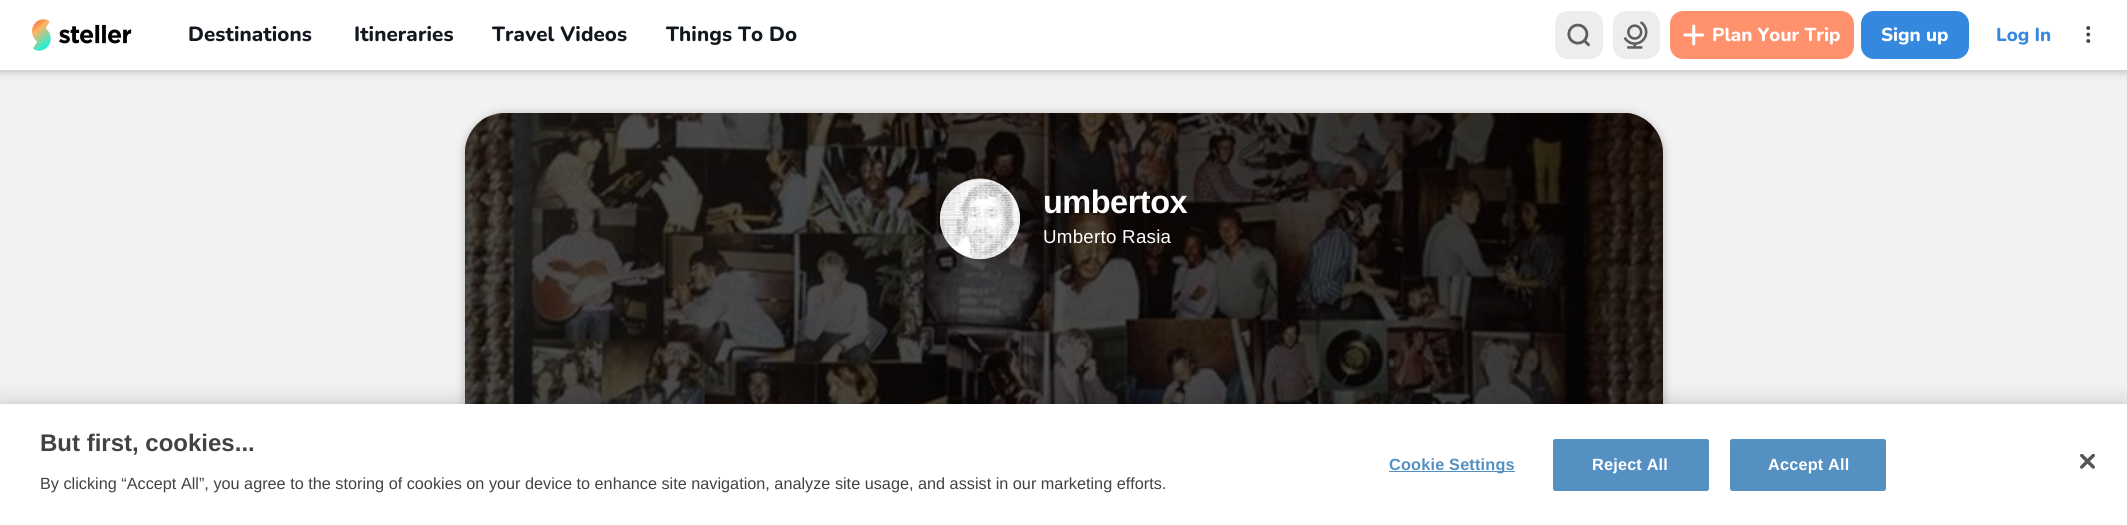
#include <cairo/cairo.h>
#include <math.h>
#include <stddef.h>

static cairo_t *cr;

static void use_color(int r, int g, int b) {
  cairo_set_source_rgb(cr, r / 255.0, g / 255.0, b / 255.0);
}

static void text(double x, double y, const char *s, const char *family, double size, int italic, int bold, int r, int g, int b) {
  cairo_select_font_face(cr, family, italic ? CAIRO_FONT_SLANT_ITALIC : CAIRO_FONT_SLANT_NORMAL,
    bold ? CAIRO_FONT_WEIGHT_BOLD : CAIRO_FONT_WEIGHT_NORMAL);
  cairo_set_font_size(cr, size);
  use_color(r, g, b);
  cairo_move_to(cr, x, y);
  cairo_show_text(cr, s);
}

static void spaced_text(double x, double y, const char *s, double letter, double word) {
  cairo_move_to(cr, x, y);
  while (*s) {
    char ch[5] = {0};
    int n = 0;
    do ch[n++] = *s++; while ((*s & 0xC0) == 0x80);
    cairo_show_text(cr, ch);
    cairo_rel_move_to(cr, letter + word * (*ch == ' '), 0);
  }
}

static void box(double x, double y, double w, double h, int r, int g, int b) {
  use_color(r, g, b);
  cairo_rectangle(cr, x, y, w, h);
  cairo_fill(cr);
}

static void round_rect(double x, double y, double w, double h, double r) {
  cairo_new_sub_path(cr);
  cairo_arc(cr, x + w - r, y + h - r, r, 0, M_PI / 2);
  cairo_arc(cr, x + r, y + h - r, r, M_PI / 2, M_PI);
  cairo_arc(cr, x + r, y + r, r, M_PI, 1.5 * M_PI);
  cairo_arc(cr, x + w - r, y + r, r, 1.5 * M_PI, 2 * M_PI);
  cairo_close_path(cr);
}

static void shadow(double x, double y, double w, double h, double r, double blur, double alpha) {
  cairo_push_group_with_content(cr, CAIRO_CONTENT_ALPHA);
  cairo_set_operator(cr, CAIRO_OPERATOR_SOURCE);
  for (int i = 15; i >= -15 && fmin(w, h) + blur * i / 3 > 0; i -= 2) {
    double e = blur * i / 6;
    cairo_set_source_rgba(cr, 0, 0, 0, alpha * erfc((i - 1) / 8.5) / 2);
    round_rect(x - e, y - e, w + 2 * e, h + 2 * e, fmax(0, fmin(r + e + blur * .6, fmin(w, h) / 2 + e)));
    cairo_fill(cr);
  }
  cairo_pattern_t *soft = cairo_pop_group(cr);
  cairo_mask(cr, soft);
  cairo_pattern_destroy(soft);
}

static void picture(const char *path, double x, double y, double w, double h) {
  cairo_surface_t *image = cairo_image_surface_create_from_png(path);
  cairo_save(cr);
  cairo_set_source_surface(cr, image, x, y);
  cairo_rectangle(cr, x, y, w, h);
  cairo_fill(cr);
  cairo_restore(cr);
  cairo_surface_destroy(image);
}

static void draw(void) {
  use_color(242, 242, 242);
  cairo_paint(cr);
  use_color(0, 0, 0);
  shadow(0, 1, 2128, 70, 0, 5, 0.25);
  box(0, 0, 2127, 70, 255, 255, 255);
  picture("img_01.png", 32, 19, 100, 32);
  use_color(237, 237, 237);
  round_rect(1555, 11, 48, 48, 13);
  cairo_fill(cr);
  picture("img_02.png", 1567, 23, 23, 24);
  round_rect(1613, 11, 47, 48, 13);
  cairo_fill(cr);
  picture("img_03.png", 1623, 21, 25, 28);
  use_color(255, 145, 109);
  round_rect(1670, 11, 184, 48, 13);
  cairo_fill(cr);
  picture("img_04.png", 1683, 24, 22, 22);
  use_color(52, 137, 223);
  round_rect(1861, 11, 108, 48, 13);
  cairo_fill(cr);
  picture("img_05.png", 2086, 26, 5, 17);
  use_color(0, 0, 0);
  shadow(465, 114, 1198, 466, 40, 5, 0.25);
  use_color(122, 107, 98);
  cairo_new_path(cr);
  cairo_move_to(cr, 505, 113);
  cairo_line_to(cr, 1623, 113);
  cairo_curve_to(cr, 1645, 113, 1663, 131, 1663, 153);
  cairo_line_to(cr, 1663, 525);
  cairo_line_to(cr, 465, 525);
  cairo_line_to(cr, 465, 153);
  cairo_curve_to(cr, 465, 131, 483, 113, 505, 113);
  cairo_close_path(cr);
  cairo_fill(cr);
  picture("img_06.png", 465, 113, 1198, 291);
  cairo_set_source_rgba(cr, 0, 0, 0, 0.7);
  cairo_new_path(cr);
  cairo_move_to(cr, 505, 113);
  cairo_line_to(cr, 1623, 113);
  cairo_curve_to(cr, 1645, 113, 1663, 131, 1663, 153);
  cairo_line_to(cr, 1663, 525);
  cairo_line_to(cr, 465, 525);
  cairo_line_to(cr, 465, 153);
  cairo_curve_to(cr, 465, 131, 483, 113, 505, 113);
  cairo_close_path(cr);
  cairo_fill(cr);
  use_color(233, 233, 233);
  cairo_arc(cr, 980, 219, 40, 0, 2 * M_PI);
  cairo_fill(cr);
  picture("img_07.png", 940, 178, 80, 82);
  use_color(0, 0, 0);
  shadow(0, 404, 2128, 121, 0, 11, 0.2);
  box(0, 404, 2127, 121, 255, 255, 255);
  box(1389, 471, 126, 1, 84, 145, 194);
  round_rect(1553.5, 439.5, 155, 51, 2);
  cairo_fill_preserve(cr);
  cairo_set_line_width(cr, 1);
  cairo_stroke(cr);
  round_rect(1730.5, 439.5, 155, 51, 2);
  cairo_fill_preserve(cr);
  cairo_stroke(cr);
  picture("img_08.png", 2080, 454, 15, 15);
  cairo_select_font_face(cr, "Nunito ExtraBold", CAIRO_FONT_SLANT_NORMAL, CAIRO_FONT_WEIGHT_NORMAL);
  cairo_set_font_size(cr, 20.5);
  use_color(18, 24, 30);
  spaced_text(188, 41, "Destinations", 0.1, 0);
  spaced_text(354, 41, "Itineraries", 0.1, 0);
  spaced_text(492, 41, "Travel Videos", 0.1, 0);
  spaced_text(666, 41, "Things To Do", 0.1, 0);
  text(1712, 41, "Plan Your Trip", "Nunito ExtraBold", 18.75, 0, 0, 255, 255, 255);
  text(1881, 41, "Sign up", "Nunito ExtraBold", 18.75, 0, 0, 255, 255, 255);
  text(1996, 41, "Log In", "Nunito ExtraBold", 18.75, 0, 0, 52, 137, 223);
  cairo_select_font_face(cr, "Liberation Sans", CAIRO_FONT_SLANT_NORMAL, CAIRO_FONT_WEIGHT_BOLD);
  cairo_set_font_size(cr, 32.5);
  use_color(255, 255, 255);
  spaced_text(1043, 213, "umbertox", -0.5, 0);
  cairo_select_font_face(cr, "Liberation Sans", CAIRO_FONT_SLANT_NORMAL, CAIRO_FONT_WEIGHT_NORMAL);
  cairo_set_font_size(cr, 18.75);
  spaced_text(1043, 243, "Umberto Rasia", 0.25, 0);
  text(40, 451, "But first, cookies...", "Liberation Sans", 24, 0, 1, 66, 66, 66);
  text(40, 489, "By clicking “Accept All”, you agree to the storing of cookies on your device to enhance site navigation, analyze site usage, and assist in our marketing efforts.", "Liberation Sans", 16.25, 0, 0, 66, 66, 66);
  cairo_select_font_face(cr, "Liberation Sans", CAIRO_FONT_SLANT_NORMAL, CAIRO_FONT_WEIGHT_BOLD);
  use_color(84, 145, 194);
  spaced_text(1389, 470, "Cookie Settings", 0.2, 0);
  use_color(255, 255, 255);
  spaced_text(1592, 470, "Reject All", 0.2, 0);
  spaced_text(1768, 470, "Accept All", 0.2, 0);
}

int main(void) {
  cairo_surface_t *surface = cairo_image_surface_create(CAIRO_FORMAT_RGB24, 2127, 525);
  cr = cairo_create(surface);
  cairo_font_options_t *options = cairo_font_options_create();
  cairo_font_options_set_hint_metrics(options, CAIRO_HINT_METRICS_OFF);
  cairo_font_options_set_hint_style(options, CAIRO_HINT_STYLE_NONE);
  cairo_set_font_options(cr, options);
  cairo_set_miter_limit(cr, 4);
  draw();
  cairo_surface_write_to_png(surface, "out.png");
  cairo_font_options_destroy(options);
  cairo_destroy(cr);
  cairo_surface_destroy(surface);
  return 0;
}
